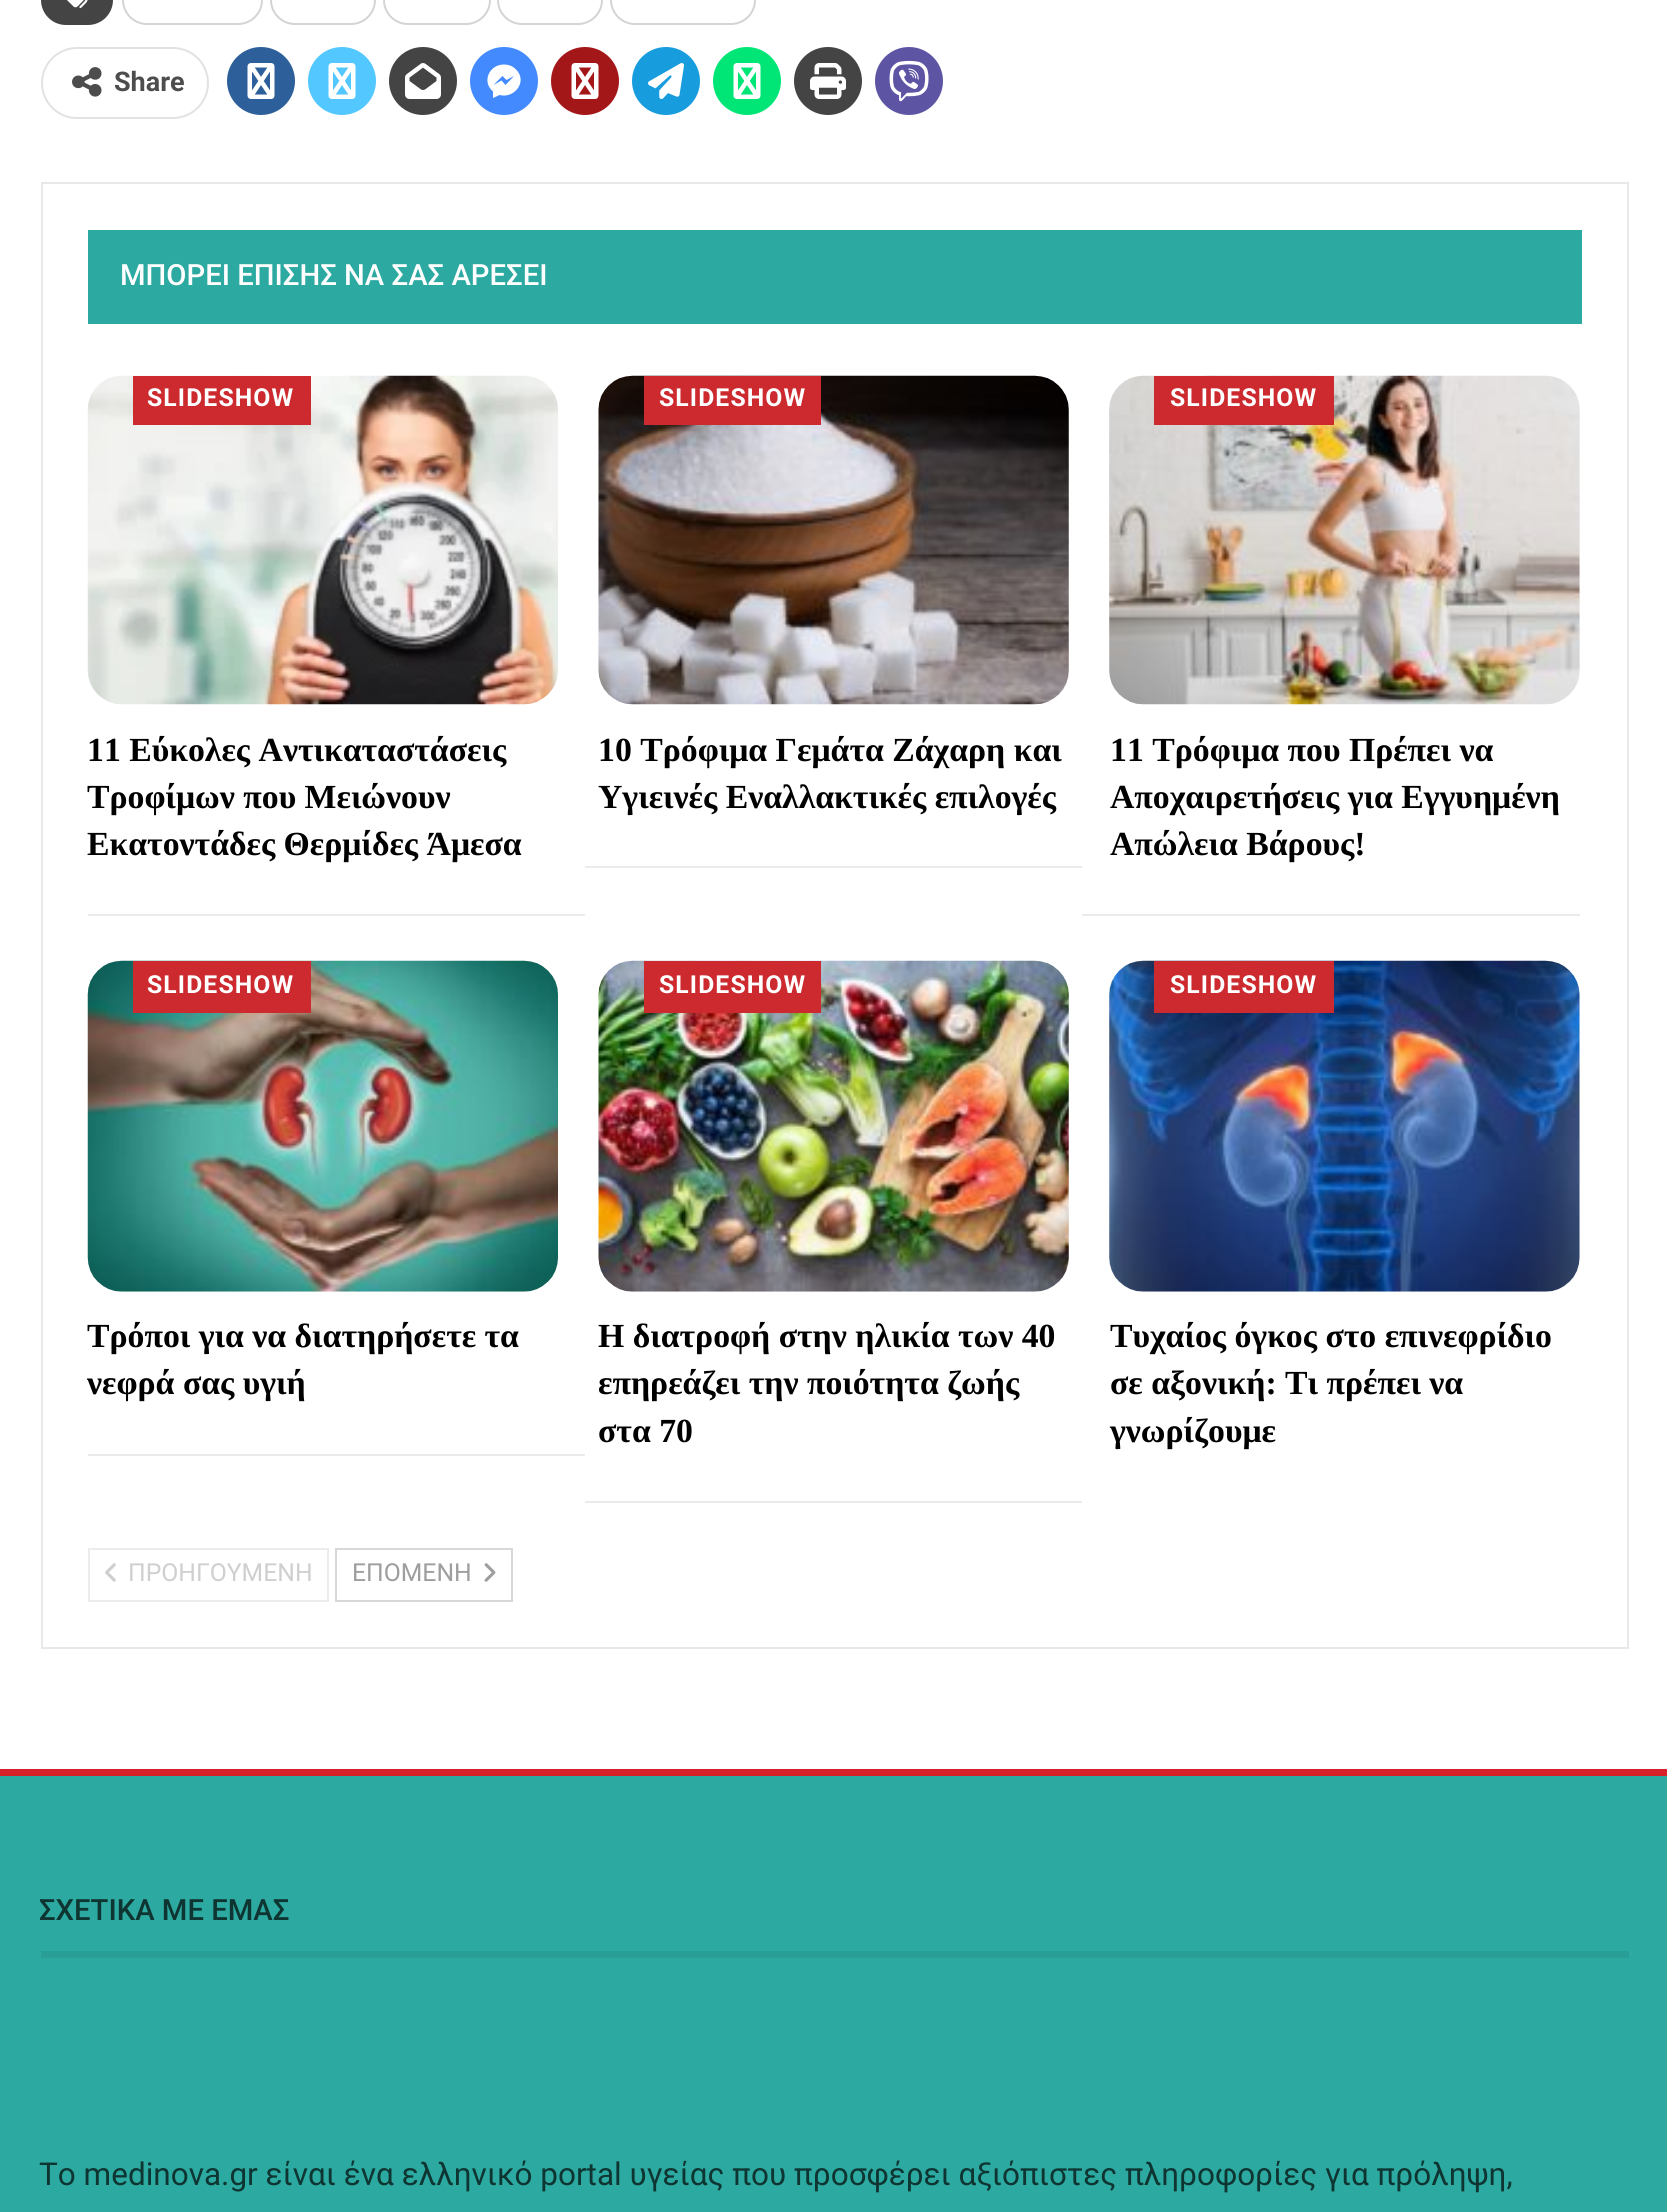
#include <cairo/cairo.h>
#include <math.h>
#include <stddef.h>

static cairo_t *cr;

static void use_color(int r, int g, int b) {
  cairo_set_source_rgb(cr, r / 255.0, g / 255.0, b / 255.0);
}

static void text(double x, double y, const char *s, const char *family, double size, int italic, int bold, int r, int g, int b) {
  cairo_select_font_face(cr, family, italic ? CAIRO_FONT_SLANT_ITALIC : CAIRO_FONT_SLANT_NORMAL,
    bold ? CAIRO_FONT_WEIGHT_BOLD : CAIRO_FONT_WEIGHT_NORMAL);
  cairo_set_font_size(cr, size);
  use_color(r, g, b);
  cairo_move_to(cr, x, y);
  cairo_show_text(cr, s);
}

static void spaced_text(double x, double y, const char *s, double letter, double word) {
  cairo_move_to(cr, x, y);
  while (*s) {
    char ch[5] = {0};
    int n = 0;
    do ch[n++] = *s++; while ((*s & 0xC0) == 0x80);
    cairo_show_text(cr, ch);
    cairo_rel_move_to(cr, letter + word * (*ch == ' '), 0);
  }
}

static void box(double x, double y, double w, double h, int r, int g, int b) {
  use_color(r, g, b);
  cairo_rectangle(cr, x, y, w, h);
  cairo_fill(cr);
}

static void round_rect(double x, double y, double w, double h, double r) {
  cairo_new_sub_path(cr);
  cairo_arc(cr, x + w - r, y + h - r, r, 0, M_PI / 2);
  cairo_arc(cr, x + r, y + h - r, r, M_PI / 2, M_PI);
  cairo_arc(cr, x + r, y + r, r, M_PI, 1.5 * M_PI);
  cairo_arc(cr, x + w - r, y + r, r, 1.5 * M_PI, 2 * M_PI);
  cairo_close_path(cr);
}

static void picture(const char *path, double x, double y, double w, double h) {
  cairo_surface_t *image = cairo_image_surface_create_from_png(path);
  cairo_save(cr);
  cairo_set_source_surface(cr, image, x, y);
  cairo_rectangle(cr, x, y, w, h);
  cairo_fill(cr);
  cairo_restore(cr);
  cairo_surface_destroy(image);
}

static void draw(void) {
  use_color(255, 255, 255);
  cairo_paint(cr);
  use_color(68, 68, 68);
  round_rect(42, -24, 70, 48, 24);
  cairo_fill_preserve(cr);
  cairo_stroke(cr);
  picture("img_01.png", 67, 0, 21, 9);
  round_rect(123, -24, 139, 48, 24);
  use_color(212, 212, 212);
  cairo_stroke(cr);
  round_rect(271, -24, 104, 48, 24);
  cairo_stroke(cr);
  round_rect(384, -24, 106, 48, 24);
  cairo_stroke(cr);
  round_rect(498, -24, 104, 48, 24);
  cairo_stroke(cr);
  round_rect(611, -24, 144, 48, 24);
  cairo_stroke(cr);
  round_rect(42, 48, 166, 70, 35);
  use_color(226, 226, 226);
  cairo_stroke(cr);
  picture("img_02.png", 72, 67, 30, 30);
  use_color(45, 95, 154);
  cairo_arc(cr, 261, 81, 34, 0, 2 * M_PI);
  cairo_fill(cr);
  picture("img_03.png", 247, 63, 28, 36);
  use_color(83, 199, 255);
  cairo_arc(cr, 342, 81, 34, 0, 2 * M_PI);
  cairo_fill(cr);
  picture("img_04.png", 328, 63, 28, 36);
  use_color(68, 68, 68);
  cairo_arc(cr, 423, 81, 34, 0, 2 * M_PI);
  cairo_fill(cr);
  picture("img_05.png", 405, 63, 36, 36);
  use_color(68, 138, 255);
  cairo_arc(cr, 504, 81, 34, 0, 2 * M_PI);
  cairo_fill(cr);
  use_color(255, 255, 255);
  cairo_new_path(cr);
  cairo_move_to(cr, 504, 64.5);
  cairo_curve_to(cr, 508.5, 64.5, 512.5, 66, 515.5, 69);
  cairo_curve_to(cr, 528.5, 81, 514.5, 99, 499.5, 95);
  cairo_line_to(cr, 493, 98);
  cairo_line_to(cr, 493, 91.5);
  cairo_curve_to(cr, 481.5, 82, 489, 64.5, 504, 64.5);
  cairo_close_path(cr);
  cairo_move_to(cr, 505.5, 85);
  cairo_line_to(cr, 514, 76);
  cairo_line_to(cr, 506.5, 80);
  cairo_line_to(cr, 502.5, 76);
  cairo_line_to(cr, 493.5, 85);
  cairo_line_to(cr, 501.5, 80.5);
  cairo_close_path(cr);
  cairo_fill(cr);
  use_color(164, 23, 25);
  cairo_arc(cr, 585, 81, 34, 0, 2 * M_PI);
  cairo_fill(cr);
  picture("img_06.png", 571, 63, 28, 36);
  use_color(23, 156, 222);
  cairo_arc(cr, 666, 81, 34, 0, 2 * M_PI);
  cairo_fill(cr);
  picture("img_07.png", 648, 63, 36, 36);
  use_color(0, 230, 118);
  cairo_arc(cr, 747, 81, 34, 0, 2 * M_PI);
  cairo_fill(cr);
  picture("img_08.png", 733, 63, 28, 36);
  use_color(68, 68, 68);
  cairo_arc(cr, 828, 81, 34, 0, 2 * M_PI);
  cairo_fill(cr);
  picture("img_09.png", 810, 63, 36, 36);
  use_color(93, 84, 164);
  cairo_arc(cr, 909, 81, 34, 0, 2 * M_PI);
  cairo_fill(cr);
  picture("img_10.png", 889, 60, 40, 42);
  cairo_rectangle(cr, 42, 183, 1586, 1465);
  use_color(232, 232, 232);
  cairo_stroke(cr);
  box(88, 230, 1494, 94, 44, 170, 161);
  box(88, 914, 497, 2, 235, 235, 235);
  picture("img_11.png", 87, 375, 471, 330);
  box(133, 376, 178, 49, 204, 42, 47);
  box(585, 866, 497, 2, 235, 235, 235);
  use_color(245, 245, 245);
  round_rect(599, 376, 470, 328, 34);
  cairo_fill(cr);
  picture("img_12.png", 598, 375, 471, 330);
  box(644, 376, 177, 49, 204, 42, 47);
  box(1082, 914, 498, 2, 235, 235, 235);
  use_color(245, 245, 245);
  round_rect(1109, 376, 471, 328, 34);
  cairo_fill(cr);
  picture("img_13.png", 1109, 375, 471, 330);
  box(1154, 376, 180, 49, 204, 42, 47);
  box(88, 1454, 497, 2, 235, 235, 235);
  use_color(245, 245, 245);
  round_rect(88, 961, 470, 331, 34);
  cairo_fill(cr);
  picture("img_14.png", 87, 960, 471, 332);
  box(133, 961, 178, 52, 204, 42, 47);
  box(585, 1501, 497, 2, 235, 235, 235);
  use_color(245, 245, 245);
  round_rect(599, 961, 470, 331, 34);
  cairo_fill(cr);
  picture("img_15.png", 598, 960, 471, 332);
  box(644, 961, 177, 52, 204, 42, 47);
  use_color(245, 245, 245);
  round_rect(1109, 961, 471, 331, 34);
  cairo_fill(cr);
  picture("img_16.png", 1109, 960, 471, 332);
  box(1154, 961, 180, 52, 204, 42, 47);
  cairo_rectangle(cr, 89, 1549, 239, 52);
  use_color(236, 236, 236);
  cairo_stroke(cr);
  picture("img_17.png", 105, 1563, 11, 19);
  cairo_rectangle(cr, 336, 1549, 176, 52);
  use_color(216, 216, 216);
  cairo_stroke(cr);
  picture("img_18.png", 484, 1563, 12, 19);
  box(0, 1776, 1667, 436, 44, 170, 161);
  box(0, 1769, 1667, 7, 214, 32, 42);
  box(41, 1951, 1588, 7, 41, 158, 150);
  text(114, 91, "Share", "Roboto", 27, 0, 1, 77, 77, 77);
  text(120, 285, "ΜΠΟΡΕΙ ΕΠΙΣΗΣ ΝΑ ΣΑΣ ΑΡΕΣΕΙ", "Roboto Medium", 29.25, 0, 0, 255, 255, 255);
  cairo_select_font_face(cr, "Roboto", CAIRO_FONT_SLANT_NORMAL, CAIRO_FONT_WEIGHT_BOLD);
  cairo_set_font_size(cr, 24.75);
  spaced_text(147, 406, "SLIDESHOW", 1.1, 0);
  text(87, 761, "11 Εύκολες Αντικαταστάσεις", "Liberation Serif", 33.75, 0, 1, 0, 0, 0);
  text(87, 808, "Τροφίμων που Μειώνουν", "Liberation Serif", 33.75, 0, 1, 0, 0, 0);
  text(87, 855, "Εκατοντάδες Θερμίδες Άμεσα", "Liberation Serif", 33.75, 0, 1, 0, 0, 0);
  cairo_select_font_face(cr, "Roboto", CAIRO_FONT_SLANT_NORMAL, CAIRO_FONT_WEIGHT_BOLD);
  cairo_set_font_size(cr, 24.75);
  use_color(255, 255, 255);
  spaced_text(659, 406, "SLIDESHOW", 1.1, 0);
  text(598, 761, "10 Τρόφιμα Γεμάτα Ζάχαρη και", "Liberation Serif", 33.75, 0, 1, 0, 0, 0);
  text(598, 808, "Υγιεινές Εναλλακτικές επιλογές", "Liberation Serif", 33.75, 0, 1, 0, 0, 0);
  cairo_select_font_face(cr, "Roboto", CAIRO_FONT_SLANT_NORMAL, CAIRO_FONT_WEIGHT_BOLD);
  cairo_set_font_size(cr, 24.75);
  use_color(255, 255, 255);
  spaced_text(1170, 406, "SLIDESHOW", 1.1, 0);
  text(1110, 761, "11 Τρόφιμα που Πρέπει να", "Liberation Serif", 33.75, 0, 1, 0, 0, 0);
  text(1110, 808, "Αποχαιρετήσεις για Εγγυημένη", "Liberation Serif", 33.75, 0, 1, 0, 0, 0);
  text(1110, 855, "Απώλεια Βάρους!", "Liberation Serif", 33.75, 0, 1, 0, 0, 0);
  cairo_select_font_face(cr, "Roboto", CAIRO_FONT_SLANT_NORMAL, CAIRO_FONT_WEIGHT_BOLD);
  cairo_set_font_size(cr, 24.75);
  use_color(255, 255, 255);
  spaced_text(147, 993, "SLIDESHOW", 1.1, 0);
  text(87, 1347, "Τρόποι για να διατηρήσετε τα", "Liberation Serif", 33.75, 0, 1, 0, 0, 0);
  text(87, 1394, "νεφρά σας υγιή", "Liberation Serif", 33.75, 0, 1, 0, 0, 0);
  cairo_select_font_face(cr, "Roboto", CAIRO_FONT_SLANT_NORMAL, CAIRO_FONT_WEIGHT_BOLD);
  cairo_set_font_size(cr, 24.75);
  use_color(255, 255, 255);
  spaced_text(659, 993, "SLIDESHOW", 1.1, 0);
  text(598, 1347, "Η διατροφή στην ηλικία των 40", "Liberation Serif", 33.75, 0, 1, 0, 0, 0);
  text(598, 1394, "επηρεάζει την ποιότητα ζωής", "Liberation Serif", 33.75, 0, 1, 0, 0, 0);
  text(598, 1442, "στα 70", "Liberation Serif", 33.75, 0, 1, 0, 0, 0);
  cairo_select_font_face(cr, "Roboto", CAIRO_FONT_SLANT_NORMAL, CAIRO_FONT_WEIGHT_BOLD);
  cairo_set_font_size(cr, 24.75);
  use_color(255, 255, 255);
  spaced_text(1170, 993, "SLIDESHOW", 1.1, 0);
  text(1110, 1347, "Τυχαίος όγκος στο επινεφρίδιο", "Liberation Serif", 33.75, 0, 1, 0, 0, 0);
  text(1110, 1394, "σε αξονική: Τι πρέπει να", "Liberation Serif", 33.75, 0, 1, 0, 0, 0);
  text(1110, 1442, "γνωρίζουμε", "Liberation Serif", 33.75, 0, 1, 0, 0, 0);
  text(128, 1581, "ΠΡΟΗΓΟΥΜΕΝΗ", "Roboto", 24.75, 0, 0, 207, 207, 207);
  text(352, 1581, "ΕΠΟΜΕΝΗ", "Roboto", 24.75, 0, 0, 158, 158, 158);
  text(39, 1920, "ΣΧΕΤΙΚΑ ΜΕ ΕΜΑΣ", "Roboto Medium", 29.25, 0, 0, 14, 53, 50);
  text(39, 2185, "Το medinova.gr είναι ένα ελληνικό portal υγείας που προσφέρει αξιόπιστες πληροφορίες για πρόληψη,", "Roboto", 31.5, 0, 0, 14, 53, 50);
}

int main(void) {
  cairo_surface_t *surface = cairo_image_surface_create(CAIRO_FORMAT_RGB24, 1667, 2212);
  cr = cairo_create(surface);
  cairo_font_options_t *options = cairo_font_options_create();
  cairo_font_options_set_hint_metrics(options, CAIRO_HINT_METRICS_OFF);
  cairo_font_options_set_hint_style(options, CAIRO_HINT_STYLE_NONE);
  cairo_set_font_options(cr, options);
  cairo_set_miter_limit(cr, 4);
  draw();
  cairo_surface_write_to_png(surface, "out.png");
  cairo_font_options_destroy(options);
  cairo_destroy(cr);
  cairo_surface_destroy(surface);
  return 0;
}
